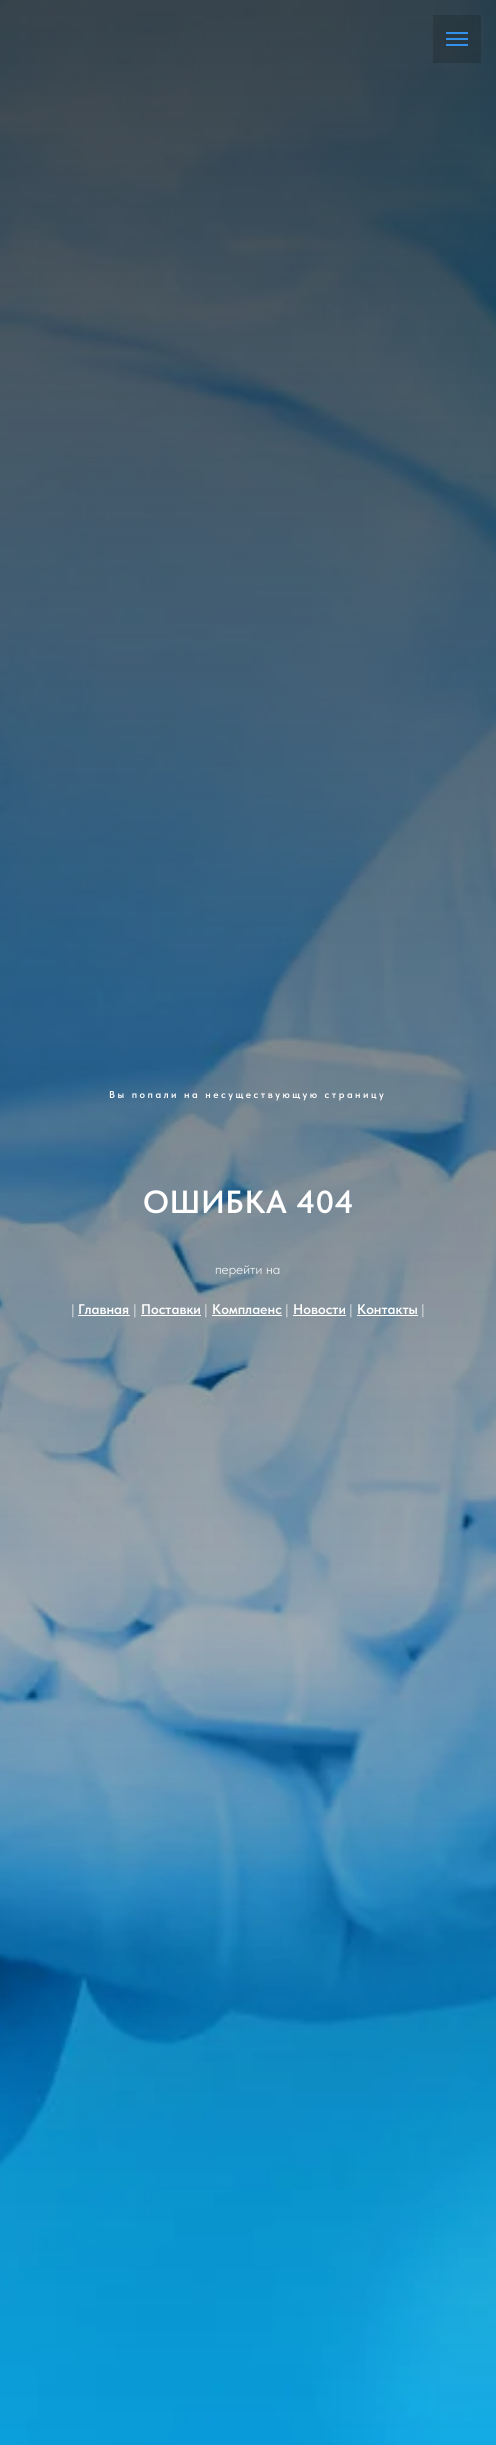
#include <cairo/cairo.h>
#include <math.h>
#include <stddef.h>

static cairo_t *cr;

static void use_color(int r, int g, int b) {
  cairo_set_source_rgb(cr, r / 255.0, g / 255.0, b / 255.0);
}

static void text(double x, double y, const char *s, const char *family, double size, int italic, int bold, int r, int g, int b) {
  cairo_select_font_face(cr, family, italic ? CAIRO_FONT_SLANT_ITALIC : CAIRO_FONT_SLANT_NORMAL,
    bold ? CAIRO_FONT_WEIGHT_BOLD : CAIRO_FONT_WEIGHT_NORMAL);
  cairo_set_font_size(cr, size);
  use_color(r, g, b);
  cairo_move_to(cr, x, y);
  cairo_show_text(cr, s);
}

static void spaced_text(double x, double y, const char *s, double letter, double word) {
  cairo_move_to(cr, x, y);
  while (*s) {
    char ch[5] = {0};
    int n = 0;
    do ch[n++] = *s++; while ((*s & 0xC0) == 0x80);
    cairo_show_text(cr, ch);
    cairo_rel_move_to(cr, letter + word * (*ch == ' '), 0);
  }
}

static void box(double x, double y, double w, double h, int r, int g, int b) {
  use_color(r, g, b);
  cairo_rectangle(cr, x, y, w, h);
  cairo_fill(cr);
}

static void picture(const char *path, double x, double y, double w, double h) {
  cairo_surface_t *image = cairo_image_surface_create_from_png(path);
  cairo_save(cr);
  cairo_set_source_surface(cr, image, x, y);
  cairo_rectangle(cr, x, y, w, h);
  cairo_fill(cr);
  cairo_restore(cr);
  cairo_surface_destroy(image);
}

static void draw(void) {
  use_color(255, 255, 255);
  cairo_paint(cr);
  picture("img_01.png", 0, 0, 496, 2445);
  cairo_set_source_rgba(cr, 0.067, 0.067, 0.067, 0.2);
  cairo_rectangle(cr, 433, 15, 48, 48);
  cairo_fill(cr);
  box(446, 32, 22, 2, 51, 144, 236);
  box(446, 38, 22, 2, 51, 144, 236);
  box(446, 44, 22, 2, 51, 144, 236);
  box(78, 1315, 52, 1, 255, 255, 255);
  box(141, 1315, 60, 1, 255, 255, 255);
  box(212, 1315, 70, 1, 255, 255, 255);
  box(293, 1315, 53, 1, 255, 255, 255);
  box(357, 1315, 61, 1, 255, 255, 255);
  cairo_select_font_face(cr, "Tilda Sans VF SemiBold", CAIRO_FONT_SLANT_NORMAL, CAIRO_FONT_WEIGHT_NORMAL);
  cairo_set_font_size(cr, 10);
  spaced_text(109, 1098, "Вы попали на несуществующую страницу", 2.5, 0);
  cairo_set_font_size(cr, 32);
  spaced_text(143, 1213, "ОШИБКА 404", 0.5, 0);
  text(215, 1274, "перейти на", "Tilda Sans VF Light", 14, 0, 0, 255, 255, 255);
  text(71, 1314, "|", "Tilda Sans VF Light", 14, 0, 0, 255, 255, 255);
  text(78, 1314, "Главная", "Tilda Sans VF SemiBold", 14, 0, 0, 255, 255, 255);
  text(133, 1314, "|", "Tilda Sans VF Light", 14, 0, 0, 255, 255, 255);
  text(141, 1314, "Поставки", "Tilda Sans VF SemiBold", 14, 0, 0, 255, 255, 255);
  text(204, 1314, "|", "Tilda Sans VF Light", 14, 0, 0, 255, 255, 255);
  text(212, 1314, "Комплаенс", "Tilda Sans VF SemiBold", 14, 0, 0, 255, 255, 255);
  text(285, 1314, "|", "Tilda Sans VF Light", 14, 0, 0, 255, 255, 255);
  text(293, 1314, "Новости", "Tilda Sans VF SemiBold", 14, 0, 0, 255, 255, 255);
  text(349, 1314, "|", "Tilda Sans VF Light", 14, 0, 0, 255, 255, 255);
  text(357, 1314, "Контакты", "Tilda Sans VF SemiBold", 14, 0, 0, 255, 255, 255);
  text(421, 1314, "|", "Tilda Sans VF Light", 14, 0, 0, 255, 255, 255);
}

int main(void) {
  cairo_surface_t *surface = cairo_image_surface_create(CAIRO_FORMAT_RGB24, 496, 2445);
  cr = cairo_create(surface);
  cairo_font_options_t *options = cairo_font_options_create();
  cairo_font_options_set_hint_metrics(options, CAIRO_HINT_METRICS_OFF);
  cairo_font_options_set_hint_style(options, CAIRO_HINT_STYLE_NONE);
  cairo_set_font_options(cr, options);
  cairo_set_miter_limit(cr, 4);
  draw();
  cairo_surface_write_to_png(surface, "out.png");
  cairo_font_options_destroy(options);
  cairo_destroy(cr);
  cairo_surface_destroy(surface);
  return 0;
}
